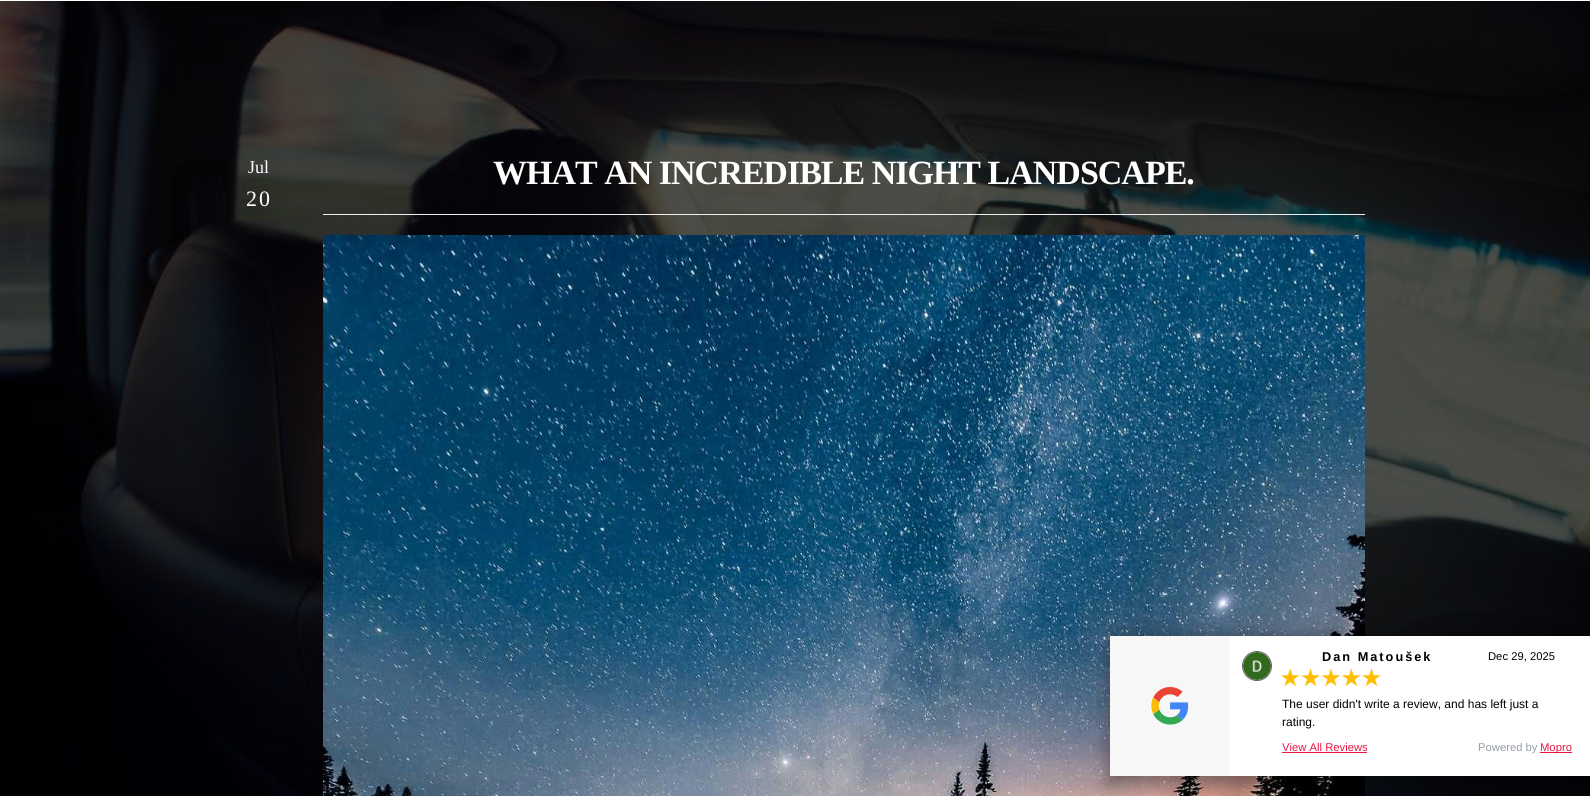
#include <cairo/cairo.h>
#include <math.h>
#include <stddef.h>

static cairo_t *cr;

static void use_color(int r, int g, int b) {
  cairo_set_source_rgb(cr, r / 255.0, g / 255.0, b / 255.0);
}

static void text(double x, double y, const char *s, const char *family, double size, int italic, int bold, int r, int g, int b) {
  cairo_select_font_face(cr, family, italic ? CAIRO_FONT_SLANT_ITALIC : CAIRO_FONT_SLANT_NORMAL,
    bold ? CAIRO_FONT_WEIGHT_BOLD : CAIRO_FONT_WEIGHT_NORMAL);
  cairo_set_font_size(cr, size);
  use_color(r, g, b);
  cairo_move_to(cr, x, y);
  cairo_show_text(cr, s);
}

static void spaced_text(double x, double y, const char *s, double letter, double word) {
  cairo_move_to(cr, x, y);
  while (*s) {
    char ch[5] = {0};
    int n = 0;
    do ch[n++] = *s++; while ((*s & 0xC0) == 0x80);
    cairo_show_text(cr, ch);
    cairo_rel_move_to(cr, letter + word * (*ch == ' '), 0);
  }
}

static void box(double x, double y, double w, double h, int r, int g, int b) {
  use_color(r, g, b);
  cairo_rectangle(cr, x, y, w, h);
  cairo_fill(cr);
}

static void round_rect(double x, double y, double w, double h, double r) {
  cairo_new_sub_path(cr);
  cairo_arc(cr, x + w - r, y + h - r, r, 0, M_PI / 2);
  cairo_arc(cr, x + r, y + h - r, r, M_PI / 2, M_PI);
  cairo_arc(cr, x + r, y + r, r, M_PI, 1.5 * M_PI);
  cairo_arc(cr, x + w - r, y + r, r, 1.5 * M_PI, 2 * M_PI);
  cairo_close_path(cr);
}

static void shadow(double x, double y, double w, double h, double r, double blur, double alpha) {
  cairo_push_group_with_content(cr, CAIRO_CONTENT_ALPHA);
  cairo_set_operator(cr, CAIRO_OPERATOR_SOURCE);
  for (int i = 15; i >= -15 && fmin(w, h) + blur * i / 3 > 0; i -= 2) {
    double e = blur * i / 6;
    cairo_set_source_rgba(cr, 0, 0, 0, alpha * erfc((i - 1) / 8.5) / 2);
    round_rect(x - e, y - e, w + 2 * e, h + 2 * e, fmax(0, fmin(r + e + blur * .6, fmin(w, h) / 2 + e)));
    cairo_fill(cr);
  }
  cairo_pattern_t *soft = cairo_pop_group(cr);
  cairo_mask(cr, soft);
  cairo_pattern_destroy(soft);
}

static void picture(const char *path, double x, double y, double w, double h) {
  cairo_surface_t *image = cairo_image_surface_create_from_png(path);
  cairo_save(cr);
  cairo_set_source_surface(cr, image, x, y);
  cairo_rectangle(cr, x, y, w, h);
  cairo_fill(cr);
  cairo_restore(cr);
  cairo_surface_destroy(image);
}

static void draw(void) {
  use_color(255, 255, 255);
  cairo_paint(cr);
  picture("img_01.png", 0, 1, 1590, 795);
  box(323, 214, 1042, 1, 238, 238, 238);
  picture("img_02.png", 323, 235, 1042, 561);
  use_color(0, 0, 0);
  shadow(1107, 635, 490, 150, 0, 7.5, 0.3);
  box(1230, 636, 360, 140, 255, 255, 255);
  box(1110, 636, 120, 140, 247, 247, 247);
  picture("img_03.png", 1151, 687, 38, 38);
  cairo_arc(cr, 1257, 666, 14.5, 0, 2 * M_PI);
  use_color(99, 99, 99);
  cairo_set_line_width(cr, 1);
  cairo_stroke(cr);
  picture("img_04.png", 1243, 652, 28, 28);
  picture("img_05.png", 1282, 668, 99, 19);
  box(1282, 752, 85, 1, 234, 23, 68);
  box(1540, 752, 32, 1, 234, 23, 68);
  text(248, 173, "Jul", "Liberation Serif", 18, 0, 0, 255, 255, 255);
  cairo_set_font_size(cr, 22);
  spaced_text(246, 206, "20", 2, 0);
  cairo_select_font_face(cr, "Liberation Serif", CAIRO_FONT_SLANT_NORMAL, CAIRO_FONT_WEIGHT_BOLD);
  cairo_set_font_size(cr, 34);
  spaced_text(493, 184, "WHAT AN INCREDIBLE NIGHT LANDSCAPE.", -1, 0);
  cairo_select_font_face(cr, "Liberation Sans", CAIRO_FONT_SLANT_NORMAL, CAIRO_FONT_WEIGHT_BOLD);
  cairo_set_font_size(cr, 12.75);
  use_color(0, 0, 0);
  spaced_text(1322, 661, "Dan Matoušek", 2, 0);
  text(1488, 660, "Dec 29, 2025", "Liberation Sans", 11.25, 0, 0, 0, 0, 0);
  text(1282, 708, "The user didn't write a review, and has left just a", "Liberation Sans", 12, 0, 0, 0, 0, 0);
  text(1282, 726, "rating.", "Liberation Sans", 12, 0, 0, 0, 0, 0);
  text(1282, 751, "View All Reviews", "Liberation Sans", 11.25, 0, 0, 234, 23, 68);
  text(1478, 751, "Powered by", "Liberation Sans", 11.25, 0, 0, 149, 157, 167);
  text(1540, 751, "Mopro", "Liberation Sans", 11.25, 0, 0, 234, 23, 68);
}

int main(void) {
  cairo_surface_t *surface = cairo_image_surface_create(CAIRO_FORMAT_RGB24, 1590, 796);
  cr = cairo_create(surface);
  cairo_font_options_t *options = cairo_font_options_create();
  cairo_font_options_set_hint_metrics(options, CAIRO_HINT_METRICS_OFF);
  cairo_font_options_set_hint_style(options, CAIRO_HINT_STYLE_NONE);
  cairo_set_font_options(cr, options);
  cairo_set_miter_limit(cr, 4);
  draw();
  cairo_surface_write_to_png(surface, "out.png");
  cairo_font_options_destroy(options);
  cairo_destroy(cr);
  cairo_surface_destroy(surface);
  return 0;
}
